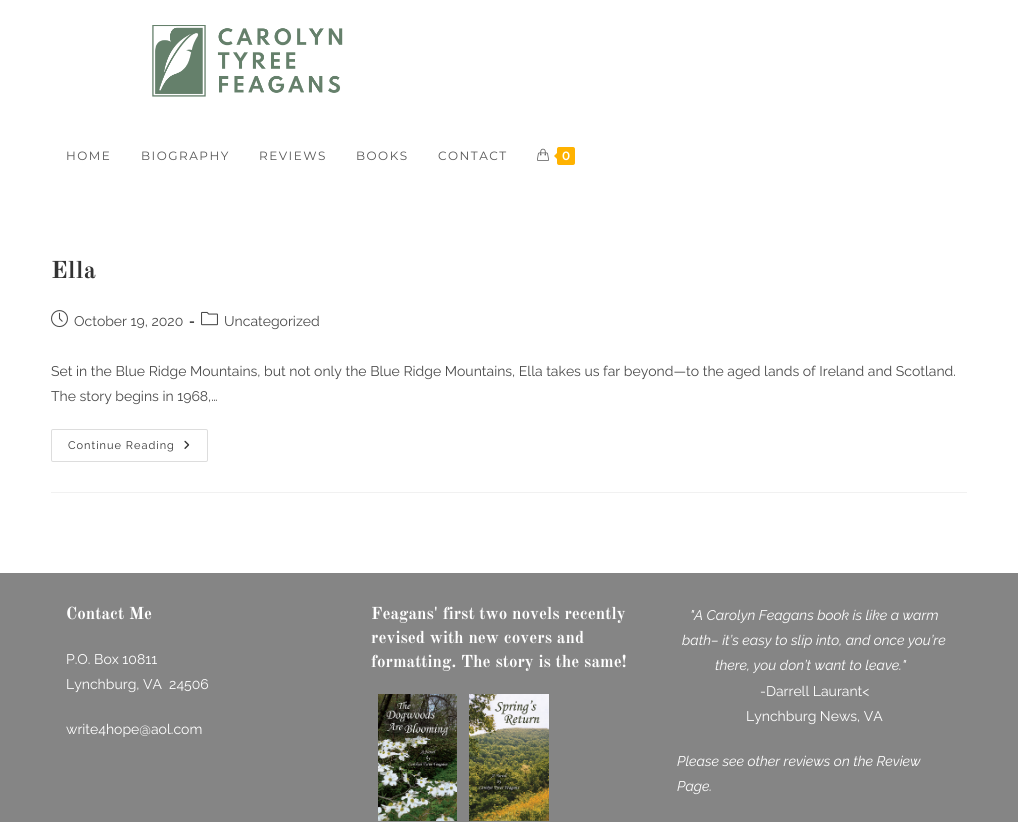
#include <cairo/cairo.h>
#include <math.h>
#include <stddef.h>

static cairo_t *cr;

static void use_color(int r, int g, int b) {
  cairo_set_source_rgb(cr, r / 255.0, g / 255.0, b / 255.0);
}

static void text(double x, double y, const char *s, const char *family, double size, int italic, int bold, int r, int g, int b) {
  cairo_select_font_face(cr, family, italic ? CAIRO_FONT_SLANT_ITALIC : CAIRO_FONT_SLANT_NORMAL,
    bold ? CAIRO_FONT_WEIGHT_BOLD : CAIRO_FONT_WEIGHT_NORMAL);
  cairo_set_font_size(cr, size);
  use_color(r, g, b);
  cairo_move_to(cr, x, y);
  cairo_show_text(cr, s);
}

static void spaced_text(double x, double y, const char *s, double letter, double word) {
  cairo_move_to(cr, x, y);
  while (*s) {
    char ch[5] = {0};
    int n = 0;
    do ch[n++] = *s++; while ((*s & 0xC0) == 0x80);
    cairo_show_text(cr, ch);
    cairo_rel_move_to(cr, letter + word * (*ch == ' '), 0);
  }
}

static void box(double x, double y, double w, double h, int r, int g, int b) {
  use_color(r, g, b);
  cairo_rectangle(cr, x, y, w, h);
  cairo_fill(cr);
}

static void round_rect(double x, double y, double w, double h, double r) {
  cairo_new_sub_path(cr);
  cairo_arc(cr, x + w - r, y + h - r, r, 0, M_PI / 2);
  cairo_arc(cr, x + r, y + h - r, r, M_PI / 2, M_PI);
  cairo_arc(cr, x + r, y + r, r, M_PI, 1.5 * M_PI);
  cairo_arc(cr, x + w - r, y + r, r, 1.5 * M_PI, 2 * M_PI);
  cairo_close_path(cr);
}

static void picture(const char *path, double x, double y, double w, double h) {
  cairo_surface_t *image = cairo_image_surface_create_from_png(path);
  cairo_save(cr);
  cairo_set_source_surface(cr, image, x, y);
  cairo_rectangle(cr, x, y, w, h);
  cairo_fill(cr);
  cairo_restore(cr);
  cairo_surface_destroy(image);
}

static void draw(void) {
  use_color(255, 255, 255);
  cairo_paint(cr);
  picture("img_01.png", 152, 25, 191, 72);
  picture("img_02.png", 537, 148, 12, 13);
  use_color(255, 178, 0);
  round_rect(557, 147, 18, 18, 2);
  cairo_fill(cr);
  cairo_new_path(cr);
  cairo_move_to(cr, 559, 151);
  cairo_line_to(cr, 559, 161);
  cairo_line_to(cr, 554, 156);
  cairo_close_path(cr);
  cairo_fill(cr);
  box(51, 492, 916, 1, 241, 241, 241);
  picture("img_03.png", 51, 310, 17, 18);
  picture("img_04.png", 201, 311, 17, 15);
  round_rect(51.5, 429.5, 156, 32, 1.5);
  use_color(221, 221, 221);
  cairo_set_line_width(cr, 1);
  cairo_stroke(cr);
  picture("img_05.png", 184, 440, 6, 9);
  box(0, 573, 1018, 249, 133, 133, 133);
  picture("img_06.png", 378, 694, 79, 127);
  picture("img_07.png", 469, 694, 80, 127);
  cairo_select_font_face(cr, "Montserrat", CAIRO_FONT_SLANT_NORMAL, CAIRO_FONT_WEIGHT_NORMAL);
  cairo_set_font_size(cr, 12);
  use_color(85, 85, 85);
  spaced_text(66, 160, "HOME", 1.5, 0);
  spaced_text(141, 160, "BIOGRAPHY", 1.5, 0);
  spaced_text(259, 160, "REVIEWS", 1.5, 0);
  spaced_text(356, 160, "BOOKS", 1.5, 0);
  spaced_text(438, 160, "CONTACT", 1.5, 0);
  text(562, 160, "0", "Montserrat SemiBold", 12, 0, 0, 255, 255, 255);
  cairo_select_font_face(cr, "Old Standard TT", CAIRO_FONT_SLANT_NORMAL, CAIRO_FONT_WEIGHT_BOLD);
  cairo_set_font_size(cr, 24);
  use_color(51, 51, 51);
  spaced_text(51, 278, "Ella", 0.5, 0);
  text(74, 326, "October 19, 2020", "Raleway", 14, 0, 0, 74, 74, 74);
  text(189, 326, "-", "Raleway", 14, 0, 1, 74, 74, 74);
  text(224, 326, "Uncategorized", "Raleway", 14, 0, 0, 74, 74, 74);
  text(51, 376, "Set in the Blue Ridge Mountains, but not only the Blue Ridge Mountains, Ella takes us far beyond—to the aged lands of Ireland and Scotland.", "Raleway", 14, 0, 0, 74, 74, 74);
  text(51, 401, "The story begins in 1968,…", "Raleway", 14, 0, 0, 74, 74, 74);
  cairo_set_font_size(cr, 11);
  use_color(51, 51, 51);
  spaced_text(68, 449, "Continue Reading", 1, 0);
  text(66, 619, "Contact Me", "Old Standard TT", 17, 0, 1, 255, 255, 255);
  text(66, 664, "P.O. Box 10811", "Raleway", 14, 0, 0, 255, 255, 255);
  text(66, 689, "Lynchburg, VA  24506", "Raleway", 14, 0, 0, 255, 255, 255);
  text(66, 734, "write4hope@aol.com", "Raleway", 14, 0, 0, 255, 255, 255);
  text(371, 619, "Feagans' first two novels recently", "Old Standard TT", 17, 0, 1, 255, 255, 255);
  text(371, 643, "revised with new covers and", "Old Standard TT", 17, 0, 1, 255, 255, 255);
  text(371, 667, "formatting. The story is the same!", "Old Standard TT", 17, 0, 1, 255, 255, 255);
  text(690, 620, "\"A Carolyn Feagans book is like a warm", "Raleway", 14, 1, 0, 255, 255, 255);
  text(682, 645, "bath– it’s easy to slip into, and once you’re", "Raleway", 14, 1, 0, 255, 255, 255);
  text(715, 670, "there, you don’t want to leave.\"", "Raleway", 14, 1, 0, 255, 255, 255);
  text(760, 696, "-Darrell Laurant<", "Raleway", 14, 0, 0, 255, 255, 255);
  text(746, 721, "Lynchburg News, VA", "Raleway", 14, 0, 0, 255, 255, 255);
  text(677, 766, "Please see other reviews on the Review", "Raleway", 14, 1, 0, 255, 255, 255);
  text(677, 791, "Page.", "Raleway", 14, 1, 0, 255, 255, 255);
}

int main(void) {
  cairo_surface_t *surface = cairo_image_surface_create(CAIRO_FORMAT_RGB24, 1018, 822);
  cr = cairo_create(surface);
  cairo_font_options_t *options = cairo_font_options_create();
  cairo_font_options_set_hint_metrics(options, CAIRO_HINT_METRICS_OFF);
  cairo_font_options_set_hint_style(options, CAIRO_HINT_STYLE_NONE);
  cairo_set_font_options(cr, options);
  cairo_set_miter_limit(cr, 4);
  draw();
  cairo_surface_write_to_png(surface, "out.png");
  cairo_font_options_destroy(options);
  cairo_destroy(cr);
  cairo_surface_destroy(surface);
  return 0;
}
